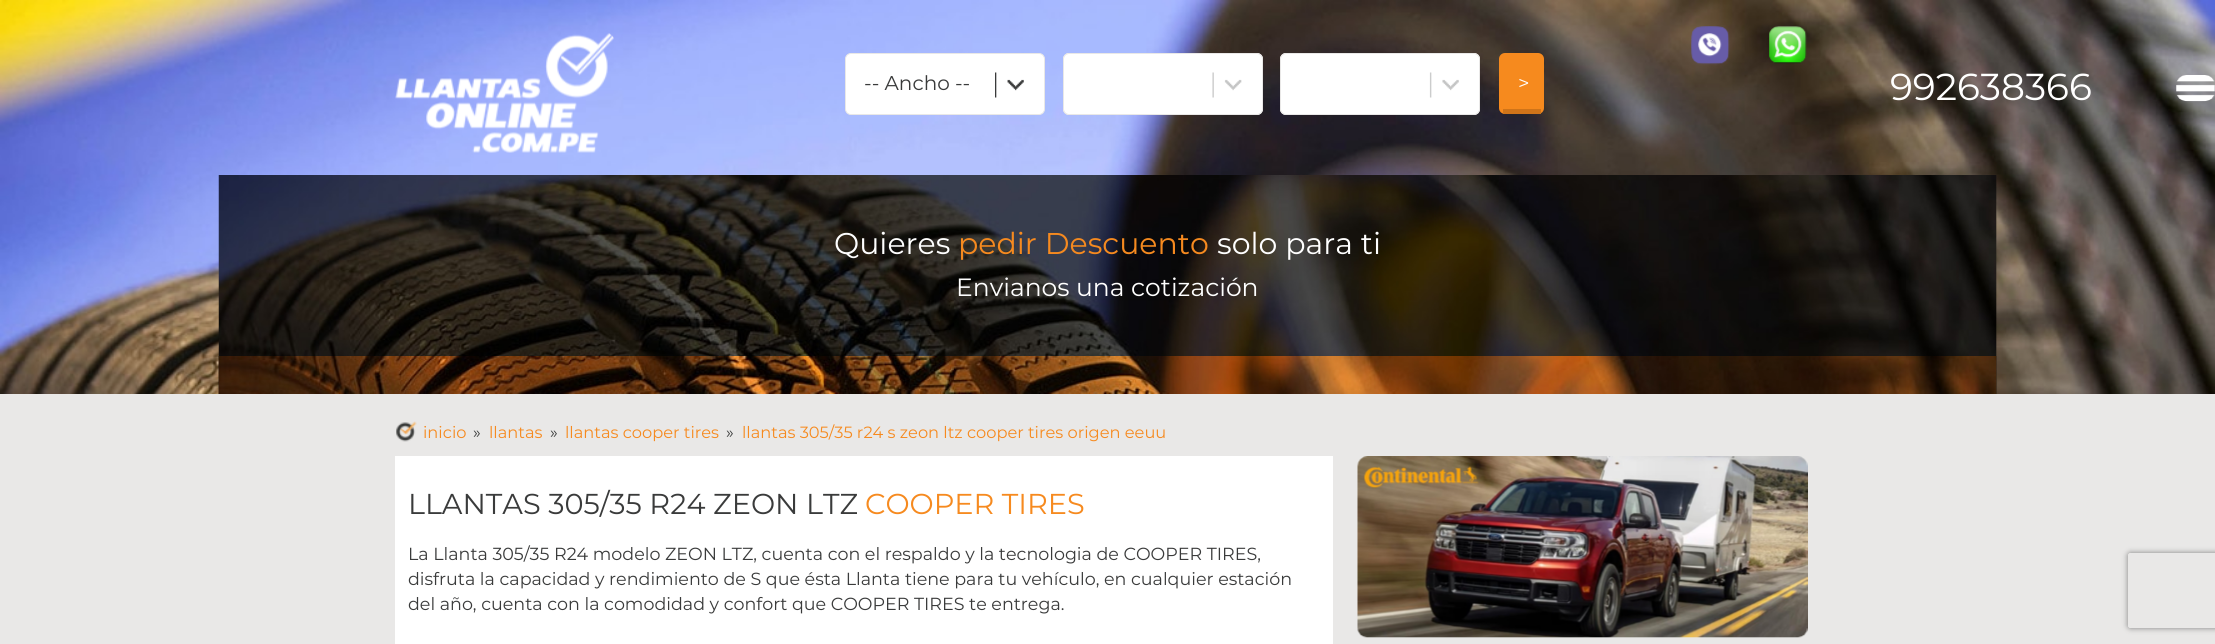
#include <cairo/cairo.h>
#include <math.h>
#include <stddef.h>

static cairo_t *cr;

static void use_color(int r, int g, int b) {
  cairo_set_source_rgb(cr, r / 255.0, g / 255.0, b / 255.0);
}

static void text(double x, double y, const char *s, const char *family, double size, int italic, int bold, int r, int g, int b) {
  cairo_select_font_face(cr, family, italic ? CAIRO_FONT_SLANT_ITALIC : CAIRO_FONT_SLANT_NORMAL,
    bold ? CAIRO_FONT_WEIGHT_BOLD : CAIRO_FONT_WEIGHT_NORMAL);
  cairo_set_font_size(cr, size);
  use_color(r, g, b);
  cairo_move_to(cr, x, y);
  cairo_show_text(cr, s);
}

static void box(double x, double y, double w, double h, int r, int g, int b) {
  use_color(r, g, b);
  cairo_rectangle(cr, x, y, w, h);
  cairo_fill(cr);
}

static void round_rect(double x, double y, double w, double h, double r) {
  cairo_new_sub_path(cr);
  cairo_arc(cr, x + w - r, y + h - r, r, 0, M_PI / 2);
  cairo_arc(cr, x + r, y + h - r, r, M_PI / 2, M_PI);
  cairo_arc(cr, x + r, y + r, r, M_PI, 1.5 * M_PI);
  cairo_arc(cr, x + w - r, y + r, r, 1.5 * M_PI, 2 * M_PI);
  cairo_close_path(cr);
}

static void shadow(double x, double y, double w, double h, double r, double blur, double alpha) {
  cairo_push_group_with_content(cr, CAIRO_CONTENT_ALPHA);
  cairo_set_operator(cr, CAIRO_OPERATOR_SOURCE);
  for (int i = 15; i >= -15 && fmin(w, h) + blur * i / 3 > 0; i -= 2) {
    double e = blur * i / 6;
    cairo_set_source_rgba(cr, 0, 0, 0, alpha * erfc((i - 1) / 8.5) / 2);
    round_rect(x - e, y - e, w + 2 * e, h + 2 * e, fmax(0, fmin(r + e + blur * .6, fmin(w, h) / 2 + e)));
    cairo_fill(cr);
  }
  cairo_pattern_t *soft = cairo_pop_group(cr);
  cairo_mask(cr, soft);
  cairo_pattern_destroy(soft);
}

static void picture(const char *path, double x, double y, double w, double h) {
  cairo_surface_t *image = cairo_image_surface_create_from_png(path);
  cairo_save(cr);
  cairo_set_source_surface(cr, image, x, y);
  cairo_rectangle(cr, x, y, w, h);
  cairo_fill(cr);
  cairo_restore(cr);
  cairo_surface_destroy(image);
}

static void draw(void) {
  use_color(255, 255, 255);
  cairo_paint(cr);
  picture("img_01.png", 0, 0, 2215, 394);
  picture("img_02.png", 395, 33, 219, 120);
  use_color(255, 255, 255);
  round_rect(845.5, 53.5, 199, 61, 5.5);
  cairo_fill_preserve(cr);
  use_color(233, 232, 231);
  cairo_set_line_width(cr, 1);
  cairo_stroke(cr);
  picture("img_03.png", 995, 72, 29, 26);
  use_color(255, 255, 255);
  round_rect(1063.5, 53.5, 199, 61, 5.5);
  cairo_fill_preserve(cr);
  use_color(233, 232, 231);
  cairo_stroke(cr);
  picture("img_04.png", 1212, 72, 30, 26);
  cairo_set_source_rgba(cr, 1, 1, 1, 0.7);
  round_rect(1063.5, 53.5, 199, 61, 5.5);
  cairo_fill_preserve(cr);
  use_color(233, 232, 231);
  cairo_stroke(cr);
  use_color(255, 255, 255);
  round_rect(1280.5, 53.5, 199, 61, 5.5);
  cairo_fill_preserve(cr);
  use_color(233, 232, 231);
  cairo_stroke(cr);
  picture("img_05.png", 1429, 72, 30, 26);
  cairo_set_source_rgba(cr, 1, 1, 1, 0.7);
  round_rect(1280.5, 53.5, 199, 61, 5.5);
  cairo_fill_preserve(cr);
  use_color(233, 232, 231);
  cairo_stroke(cr);
  use_color(246, 138, 30);
  round_rect(1499, 53, 45, 61, 6);
  cairo_fill(cr);
  box(1503, 109, 38, 5, 207, 116, 25);
  picture("img_06.png", 1691, 26, 39, 39);
  picture("img_07.png", 1769, 26, 38, 38);
  picture("img_08.png", 2176, 75, 39, 27);
  picture("img_09.png", 218, 175, 1779, 219);
  picture("img_10.png", 218, 356, 1779, 38);
  box(0, 394, 2215, 250, 233, 232, 231);
  picture("img_11.png", 396, 421, 21, 21);
  box(395, 456, 938, 188, 255, 255, 255);
  picture("img_12.png", 1357, 456, 451, 182);
  cairo_save(cr);
  cairo_set_fill_rule(cr, CAIRO_FILL_RULE_EVEN_ODD);
  cairo_new_path(cr);
  cairo_move_to(cr, 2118, 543);
  cairo_line_to(cr, 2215, 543);
  cairo_line_to(cr, 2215, 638);
  cairo_line_to(cr, 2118, 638);
  cairo_close_path(cr);
  cairo_move_to(cr, 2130.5, 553);
  cairo_line_to(cr, 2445.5, 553);
  cairo_curve_to(cr, 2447, 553, 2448, 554, 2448, 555.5);
  cairo_line_to(cr, 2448, 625.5);
  cairo_curve_to(cr, 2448, 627, 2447, 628, 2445.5, 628);
  cairo_line_to(cr, 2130.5, 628);
  cairo_curve_to(cr, 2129, 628, 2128, 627, 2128, 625.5);
  cairo_line_to(cr, 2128, 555.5);
  cairo_curve_to(cr, 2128, 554, 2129, 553, 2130.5, 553);
  cairo_close_path(cr);
  cairo_clip(cr);
  use_color(128, 128, 128);
  shadow(2128, 553, 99, 75, 2.5, 3, 1);
  cairo_restore(cr);
  text(864, 90, "-- Ancho --", "Montserrat", 20, 0, 0, 58, 59, 59);
  text(1518, 90, ">", "Montserrat", 20, 0, 0, 255, 255, 255);
  text(1890, 100, "992638366", "Montserrat", 37.5, 0, 0, 255, 255, 255);
  text(834, 254, "Quieres", "Montserrat", 30, 0, 0, 255, 255, 255);
  text(958, 254, "pedir Descuento", "Montserrat", 30, 0, 0, 246, 138, 31);
  text(1217, 254, "solo para ti", "Montserrat", 30, 0, 0, 255, 255, 255);
  text(956, 296, "Envianos una cotización", "Montserrat", 25, 0, 0, 255, 255, 255);
  text(423, 438, "inicio", "Montserrat", 16.25, 0, 0, 246, 138, 31);
  text(473, 438, "»", "Montserrat", 16.25, 0, 0, 58, 59, 59);
  text(489, 438, "llantas", "Montserrat", 16.25, 0, 0, 246, 138, 31);
  text(550, 438, "»", "Montserrat", 16.25, 0, 0, 58, 59, 59);
  text(565, 438, "llantas cooper tires", "Montserrat", 16.25, 0, 0, 246, 138, 31);
  text(726, 438, "»", "Montserrat", 16.25, 0, 0, 58, 59, 59);
  text(742, 438, "llantas 305/35 r24 s zeon ltz cooper tires origen eeuu", "Montserrat", 16.25, 0, 0, 246, 138, 31);
  text(408, 514, "LLANTAS 305/35 R24 ZEON LTZ", "Montserrat", 28.75, 0, 0, 58, 59, 59);
  text(865, 514, "COOPER TIRES", "Montserrat", 28.75, 0, 0, 246, 138, 31);
  text(408, 560, "La Llanta 305/35 R24 modelo ZEON LTZ, cuenta con el respaldo y la tecnologia de COOPER TIRES,", "Montserrat", 17.5, 0, 0, 58, 59, 59);
  text(408, 585, "disfruta la capacidad y rendimiento de S que ésta Llanta tiene para tu vehículo, en cualquier estación", "Montserrat", 17.5, 0, 0, 58, 59, 59);
  text(408, 610, "del año, cuenta con la comodidad y confort que COOPER TIRES te entrega.", "Montserrat", 17.5, 0, 0, 58, 59, 59);
}

int main(void) {
  cairo_surface_t *surface = cairo_image_surface_create(CAIRO_FORMAT_RGB24, 2215, 644);
  cr = cairo_create(surface);
  cairo_font_options_t *options = cairo_font_options_create();
  cairo_font_options_set_hint_metrics(options, CAIRO_HINT_METRICS_OFF);
  cairo_font_options_set_hint_style(options, CAIRO_HINT_STYLE_NONE);
  cairo_set_font_options(cr, options);
  cairo_set_miter_limit(cr, 4);
  draw();
  cairo_surface_write_to_png(surface, "out.png");
  cairo_font_options_destroy(options);
  cairo_destroy(cr);
  cairo_surface_destroy(surface);
  return 0;
}
